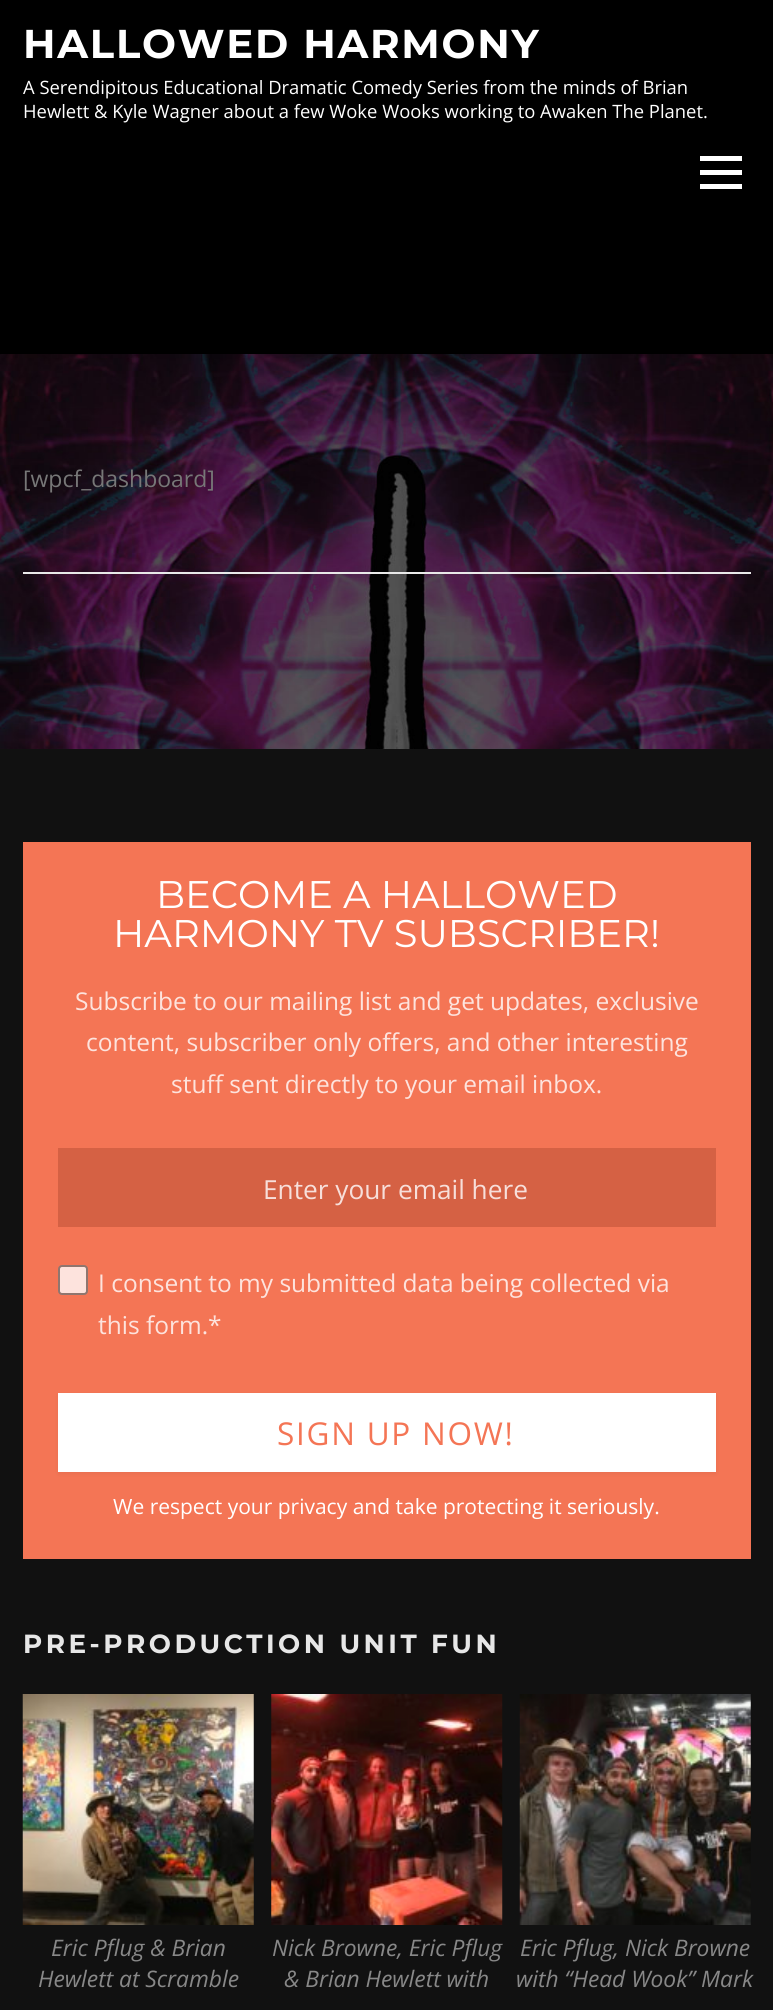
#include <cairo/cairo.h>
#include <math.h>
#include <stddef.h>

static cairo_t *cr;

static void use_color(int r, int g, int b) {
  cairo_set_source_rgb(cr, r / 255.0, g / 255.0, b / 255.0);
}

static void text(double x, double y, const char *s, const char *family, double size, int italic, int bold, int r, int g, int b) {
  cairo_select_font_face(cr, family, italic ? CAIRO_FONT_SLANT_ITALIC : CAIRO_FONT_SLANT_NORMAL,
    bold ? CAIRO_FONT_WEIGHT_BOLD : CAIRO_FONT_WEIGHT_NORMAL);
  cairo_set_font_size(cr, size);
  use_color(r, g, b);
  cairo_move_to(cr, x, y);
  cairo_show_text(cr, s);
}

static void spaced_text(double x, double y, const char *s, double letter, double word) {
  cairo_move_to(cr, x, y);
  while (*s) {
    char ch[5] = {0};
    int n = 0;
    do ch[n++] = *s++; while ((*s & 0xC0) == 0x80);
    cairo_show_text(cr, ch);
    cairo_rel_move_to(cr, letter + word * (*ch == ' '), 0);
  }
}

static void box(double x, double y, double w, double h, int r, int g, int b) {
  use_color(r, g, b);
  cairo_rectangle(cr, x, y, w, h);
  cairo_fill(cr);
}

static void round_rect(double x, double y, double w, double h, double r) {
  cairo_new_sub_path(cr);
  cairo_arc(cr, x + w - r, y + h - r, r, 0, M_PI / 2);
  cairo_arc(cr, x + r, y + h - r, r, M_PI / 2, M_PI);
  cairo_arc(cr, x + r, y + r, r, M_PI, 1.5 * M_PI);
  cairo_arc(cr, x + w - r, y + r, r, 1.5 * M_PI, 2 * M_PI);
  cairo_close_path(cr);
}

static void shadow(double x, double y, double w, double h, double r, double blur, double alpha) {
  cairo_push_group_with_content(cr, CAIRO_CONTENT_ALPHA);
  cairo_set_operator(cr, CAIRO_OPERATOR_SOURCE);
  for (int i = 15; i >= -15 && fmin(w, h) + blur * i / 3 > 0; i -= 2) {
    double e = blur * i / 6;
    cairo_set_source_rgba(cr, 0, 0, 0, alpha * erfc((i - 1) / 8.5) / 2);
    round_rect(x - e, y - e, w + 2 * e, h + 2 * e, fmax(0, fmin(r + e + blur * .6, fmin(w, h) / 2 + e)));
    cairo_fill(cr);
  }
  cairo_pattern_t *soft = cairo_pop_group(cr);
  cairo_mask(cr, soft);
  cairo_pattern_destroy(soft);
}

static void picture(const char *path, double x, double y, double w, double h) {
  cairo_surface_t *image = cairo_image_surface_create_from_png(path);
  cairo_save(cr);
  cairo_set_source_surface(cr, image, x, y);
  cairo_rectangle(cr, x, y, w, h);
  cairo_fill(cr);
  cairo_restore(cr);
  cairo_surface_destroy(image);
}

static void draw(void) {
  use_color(255, 255, 255);
  cairo_paint(cr);
  picture("img_01.png", 0, 354, 773, 395);
  box(0, 0, 773, 354, 0, 0, 0);
  box(700, 170, 42, 5, 255, 255, 255);
  box(700, 156, 42, 5, 255, 255, 255);
  box(700, 184, 42, 5, 255, 255, 255);
  box(23, 572, 728, 2, 233, 233, 233);
  box(0, 749, 773, 1261, 17, 17, 17);
  box(23, 842, 728, 717, 244, 117, 85);
  box(58, 1148, 658, 79, 213, 97, 68);
  use_color(253, 227, 221);
  round_rect(59, 1266, 28, 28, 3);
  cairo_fill_preserve(cr);
  use_color(143, 118, 111);
  cairo_stroke(cr);
  use_color(0, 0, 0);
  shadow(58, 1395, 658, 79, 0, 2, 0.05);
  box(58, 1393, 658, 79, 255, 255, 255);
  picture("img_02.png", 22, 1694, 232, 231);
  picture("img_03.png", 271, 1694, 232, 231);
  picture("img_04.png", 519, 1694, 232, 231);
  cairo_select_font_face(cr, "Montserrat", CAIRO_FONT_SLANT_NORMAL, CAIRO_FONT_WEIGHT_BOLD);
  cairo_set_font_size(cr, 40.25);
  spaced_text(23, 58, "HALLOWED HARMONY", 1.75, 0);
  text(23, 94, "A Serendipitous Educational Dramatic Comedy Series from the minds of Brian", "Open Sans", 18.4, 0, 0, 255, 255, 255);
  text(23, 118, "Hewlett & Kyle Wagner about a few Woke Wooks working to Awaken The Planet.", "Open Sans", 18.4, 0, 0, 255, 255, 255);
  text(23, 487, "[wpcf_dashboard]", "Open Sans", 23, 0, 0, 119, 119, 119);
  text(156, 908, "BECOME A HALLOWED", "Montserrat", 38.5, 0, 0, 255, 255, 255);
  text(113, 947, "HARMONY TV SUBSCRIBER!", "Montserrat", 38.5, 0, 0, 255, 255, 255);
  text(75, 1010, "Subscribe to our mailing list and get updates, exclusive", "Open Sans", 24.5, 0, 0, 253, 227, 221);
  text(86, 1051, "content, subscriber only offers, and other interesting", "Open Sans", 24.5, 0, 0, 253, 227, 221);
  text(171, 1093, "stuff sent directly to your email inbox.", "Open Sans", 24.5, 0, 0, 253, 227, 221);
  text(263, 1199, "Enter your email here", "Open Sans", 26.25, 0, 0, 247, 223, 218);
  text(98, 1292, "I consent to my submitted data being collected via", "Open Sans", 24.5, 0, 0, 253, 227, 221);
  text(98, 1334, "this form.*", "Open Sans", 24.5, 0, 0, 253, 227, 221);
  cairo_set_font_size(cr, 31.5);
  use_color(244, 117, 85);
  spaced_text(277, 1445, "SIGN UP NOW!", 1.75, 0);
  text(113, 1514, "We respect your privacy and take protecting it seriously.", "Open Sans", 21, 0, 0, 255, 255, 255);
  cairo_select_font_face(cr, "Montserrat", CAIRO_FONT_SLANT_NORMAL, CAIRO_FONT_WEIGHT_BOLD);
  cairo_set_font_size(cr, 26.25);
  use_color(231, 231, 231);
  spaced_text(23, 1653, "PRE-PRODUCTION UNIT FUN", 3.5, 0);
  text(51, 1956, "Eric Pflug & Brian", "Open Sans", 22.75, 1, 0, 136, 136, 136);
  text(38, 1987, "Hewlett at Scramble", "Open Sans", 22.75, 1, 0, 136, 136, 136);
  text(272, 1956, "Nick Browne, Eric Pflug", "Open Sans", 22.75, 1, 0, 136, 136, 136);
  text(284, 1987, "& Brian Hewlett with", "Open Sans", 22.75, 1, 0, 136, 136, 136);
  text(520, 1956, "Eric Pflug, Nick Browne", "Open Sans", 22.75, 1, 0, 136, 136, 136);
  text(516, 1987, "with “Head Wook” Mark", "Open Sans", 22.75, 1, 0, 136, 136, 136);
}

int main(void) {
  cairo_surface_t *surface = cairo_image_surface_create(CAIRO_FORMAT_RGB24, 773, 2010);
  cr = cairo_create(surface);
  cairo_font_options_t *options = cairo_font_options_create();
  cairo_font_options_set_hint_metrics(options, CAIRO_HINT_METRICS_OFF);
  cairo_font_options_set_hint_style(options, CAIRO_HINT_STYLE_NONE);
  cairo_set_font_options(cr, options);
  cairo_set_miter_limit(cr, 4);
  draw();
  cairo_surface_write_to_png(surface, "out.png");
  cairo_font_options_destroy(options);
  cairo_destroy(cr);
  cairo_surface_destroy(surface);
  return 0;
}
